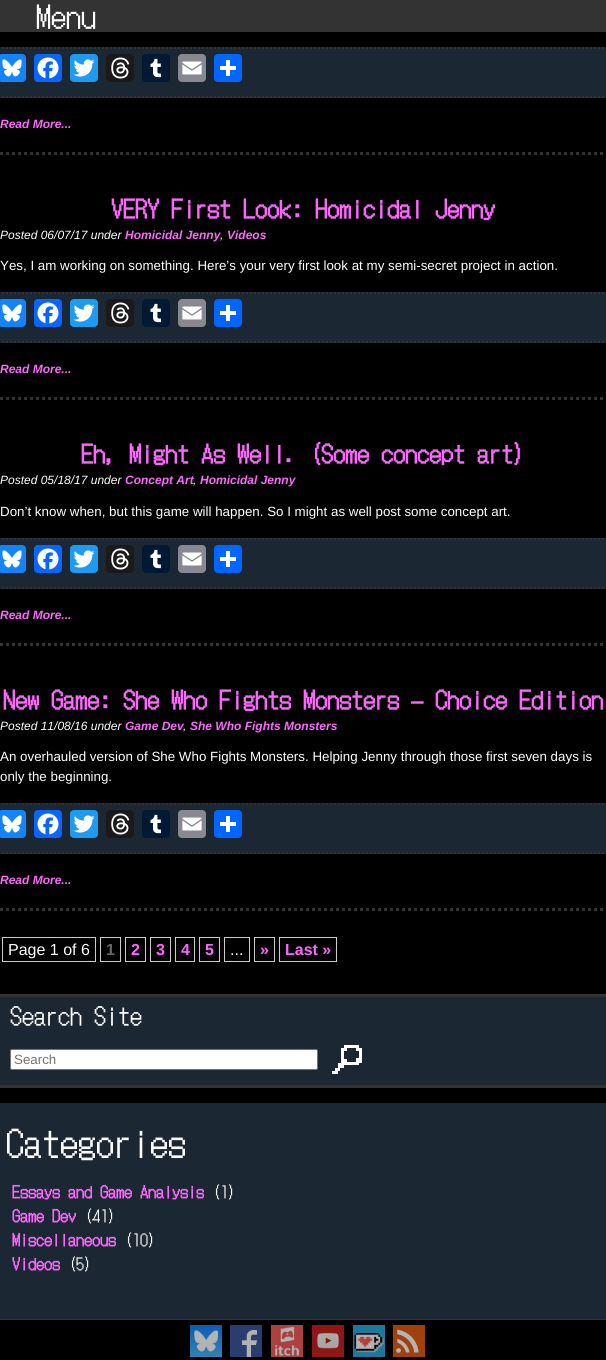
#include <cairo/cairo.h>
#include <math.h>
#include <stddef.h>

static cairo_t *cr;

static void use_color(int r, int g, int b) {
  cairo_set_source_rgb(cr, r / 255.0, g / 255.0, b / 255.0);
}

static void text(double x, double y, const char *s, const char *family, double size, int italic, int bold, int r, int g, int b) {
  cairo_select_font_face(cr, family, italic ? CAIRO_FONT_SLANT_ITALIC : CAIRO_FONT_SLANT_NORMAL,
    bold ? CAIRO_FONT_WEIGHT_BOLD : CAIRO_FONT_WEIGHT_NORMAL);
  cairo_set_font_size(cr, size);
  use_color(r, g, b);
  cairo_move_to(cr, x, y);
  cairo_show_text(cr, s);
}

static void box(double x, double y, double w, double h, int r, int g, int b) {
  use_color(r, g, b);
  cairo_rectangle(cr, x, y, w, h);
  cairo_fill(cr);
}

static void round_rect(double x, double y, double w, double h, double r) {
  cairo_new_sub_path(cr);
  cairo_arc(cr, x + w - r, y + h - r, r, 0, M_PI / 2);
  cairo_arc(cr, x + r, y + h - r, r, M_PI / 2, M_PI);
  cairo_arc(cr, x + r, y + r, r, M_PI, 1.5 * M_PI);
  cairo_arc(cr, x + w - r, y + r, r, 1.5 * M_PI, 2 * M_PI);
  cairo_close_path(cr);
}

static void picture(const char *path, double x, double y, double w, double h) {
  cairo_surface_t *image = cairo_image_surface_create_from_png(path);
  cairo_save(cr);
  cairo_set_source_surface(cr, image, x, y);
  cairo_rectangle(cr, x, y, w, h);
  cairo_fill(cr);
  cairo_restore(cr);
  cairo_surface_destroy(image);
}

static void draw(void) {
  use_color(0, 0, 0);
  cairo_paint(cr);
  box(0, 0, 606, 32, 51, 51, 51);
  cairo_new_path(cr);
  cairo_move_to(cr, 0, 153.5);
  cairo_line_to(cr, 606, 153.5);
  cairo_set_line_width(cr, 3);
  cairo_set_dash(cr, (double[]){3, 3}, 2, 0);
  cairo_stroke(cr);
  box(0, 47, 606, 51, 27, 40, 52);
  cairo_new_path(cr);
  cairo_move_to(cr, -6, 48);
  cairo_line_to(cr, 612, 48);
  use_color(51, 51, 51);
  cairo_set_line_width(cr, 2);
  cairo_set_dash(cr, (double[]){2, 2}, 2, 0);
  cairo_stroke(cr);
  cairo_new_path(cr);
  cairo_move_to(cr, -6, 97);
  cairo_line_to(cr, 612, 97);
  cairo_stroke(cr);
  use_color(18, 133, 254);
  round_rect(-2, 54, 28, 28, 4);
  cairo_fill(cr);
  picture("img_01.png", 2, 59, 20, 18);
  use_color(8, 102, 255);
  round_rect(34, 54, 28, 28, 4);
  cairo_fill(cr);
  picture("img_02.png", 37, 57, 22, 22);
  use_color(29, 155, 240);
  round_rect(70, 54, 28, 28, 4);
  cairo_fill(cr);
  picture("img_03.png", 73, 59, 22, 18);
  use_color(26, 26, 26);
  round_rect(106, 54, 28, 28, 4);
  cairo_fill(cr);
  picture("img_04.png", 111, 57, 19, 22);
  use_color(0, 25, 53);
  round_rect(142, 54, 28, 28, 4);
  cairo_fill(cr);
  picture("img_05.png", 150, 58, 11, 20);
  use_color(136, 137, 144);
  round_rect(178, 54, 28, 28, 4);
  cairo_fill(cr);
  picture("img_06.png", 182, 61, 20, 14);
  use_color(1, 102, 255);
  round_rect(214, 54, 28, 28, 4);
  cairo_fill(cr);
  box(226, 60, 4, 16, 255, 255, 255);
  box(220, 66, 16, 4, 255, 255, 255);
  cairo_new_path(cr);
  cairo_move_to(cr, 0, 398.5);
  cairo_line_to(cr, 606, 398.5);
  use_color(51, 51, 51);
  cairo_set_line_width(cr, 3);
  cairo_set_dash(cr, (double[]){3, 3}, 2, 0);
  cairo_stroke(cr);
  box(0, 292, 606, 51, 27, 40, 52);
  cairo_new_path(cr);
  cairo_move_to(cr, -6, 293);
  cairo_line_to(cr, 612, 293);
  use_color(51, 51, 51);
  cairo_set_line_width(cr, 2);
  cairo_set_dash(cr, (double[]){2, 2}, 2, 0);
  cairo_stroke(cr);
  cairo_new_path(cr);
  cairo_move_to(cr, -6, 342);
  cairo_line_to(cr, 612, 342);
  cairo_stroke(cr);
  use_color(18, 133, 254);
  round_rect(-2, 299, 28, 28, 4);
  cairo_fill(cr);
  picture("img_01.png", 2, 304, 20, 18);
  use_color(8, 102, 255);
  round_rect(34, 299, 28, 28, 4);
  cairo_fill(cr);
  picture("img_02.png", 37, 302, 22, 22);
  use_color(29, 155, 240);
  round_rect(70, 299, 28, 28, 4);
  cairo_fill(cr);
  picture("img_03.png", 73, 304, 22, 18);
  use_color(26, 26, 26);
  round_rect(106, 299, 28, 28, 4);
  cairo_fill(cr);
  picture("img_04.png", 111, 302, 19, 22);
  use_color(0, 25, 53);
  round_rect(142, 299, 28, 28, 4);
  cairo_fill(cr);
  picture("img_05.png", 150, 303, 11, 20);
  use_color(136, 137, 144);
  round_rect(178, 299, 28, 28, 4);
  cairo_fill(cr);
  picture("img_06.png", 182, 306, 20, 14);
  use_color(1, 102, 255);
  round_rect(214, 299, 28, 28, 4);
  cairo_fill(cr);
  box(226, 305, 4, 16, 255, 255, 255);
  box(220, 311, 16, 4, 255, 255, 255);
  cairo_new_path(cr);
  cairo_move_to(cr, 0, 644.5);
  cairo_line_to(cr, 606, 644.5);
  use_color(51, 51, 51);
  cairo_set_line_width(cr, 3);
  cairo_set_dash(cr, (double[]){3, 3}, 2, 0);
  cairo_stroke(cr);
  box(0, 538, 606, 51, 27, 40, 52);
  cairo_new_path(cr);
  cairo_move_to(cr, -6, 539);
  cairo_line_to(cr, 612, 539);
  use_color(51, 51, 51);
  cairo_set_line_width(cr, 2);
  cairo_set_dash(cr, (double[]){2, 2}, 2, 0);
  cairo_stroke(cr);
  cairo_new_path(cr);
  cairo_move_to(cr, -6, 588);
  cairo_line_to(cr, 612, 588);
  cairo_stroke(cr);
  use_color(18, 133, 254);
  round_rect(-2, 545, 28, 28, 4);
  cairo_fill(cr);
  picture("img_01.png", 2, 550, 20, 18);
  use_color(8, 102, 255);
  round_rect(34, 545, 28, 28, 4);
  cairo_fill(cr);
  picture("img_02.png", 37, 548, 22, 22);
  use_color(29, 155, 240);
  round_rect(70, 545, 28, 28, 4);
  cairo_fill(cr);
  picture("img_03.png", 73, 550, 22, 18);
  use_color(26, 26, 26);
  round_rect(106, 545, 28, 28, 4);
  cairo_fill(cr);
  picture("img_04.png", 111, 548, 19, 22);
  use_color(0, 25, 53);
  round_rect(142, 545, 28, 28, 4);
  cairo_fill(cr);
  picture("img_05.png", 150, 549, 11, 20);
  use_color(136, 137, 144);
  round_rect(178, 545, 28, 28, 4);
  cairo_fill(cr);
  picture("img_06.png", 182, 552, 20, 14);
  use_color(1, 102, 255);
  round_rect(214, 545, 28, 28, 4);
  cairo_fill(cr);
  box(226, 551, 4, 16, 255, 255, 255);
  box(220, 557, 16, 4, 255, 255, 255);
  cairo_new_path(cr);
  cairo_move_to(cr, 0, 909.5);
  cairo_line_to(cr, 606, 909.5);
  use_color(51, 51, 51);
  cairo_set_line_width(cr, 3);
  cairo_set_dash(cr, (double[]){3, 3}, 2, 0);
  cairo_stroke(cr);
  box(0, 803, 606, 51, 27, 40, 52);
  cairo_new_path(cr);
  cairo_move_to(cr, -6, 804);
  cairo_line_to(cr, 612, 804);
  use_color(51, 51, 51);
  cairo_set_line_width(cr, 2);
  cairo_set_dash(cr, (double[]){2, 2}, 2, 0);
  cairo_stroke(cr);
  cairo_new_path(cr);
  cairo_move_to(cr, -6, 853);
  cairo_line_to(cr, 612, 853);
  cairo_stroke(cr);
  use_color(18, 133, 254);
  round_rect(-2, 810, 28, 28, 4);
  cairo_fill(cr);
  picture("img_01.png", 2, 815, 20, 18);
  use_color(8, 102, 255);
  round_rect(34, 810, 28, 28, 4);
  cairo_fill(cr);
  picture("img_02.png", 37, 813, 22, 22);
  use_color(29, 155, 240);
  round_rect(70, 810, 28, 28, 4);
  cairo_fill(cr);
  picture("img_03.png", 73, 815, 22, 18);
  use_color(26, 26, 26);
  round_rect(106, 810, 28, 28, 4);
  cairo_fill(cr);
  picture("img_04.png", 111, 813, 19, 22);
  use_color(0, 25, 53);
  round_rect(142, 810, 28, 28, 4);
  cairo_fill(cr);
  picture("img_05.png", 150, 814, 11, 20);
  use_color(136, 137, 144);
  round_rect(178, 810, 28, 28, 4);
  cairo_fill(cr);
  picture("img_06.png", 182, 817, 20, 14);
  use_color(1, 102, 255);
  round_rect(214, 810, 28, 28, 4);
  cairo_fill(cr);
  box(226, 816, 4, 16, 255, 255, 255);
  box(220, 822, 16, 4, 255, 255, 255);
  cairo_rectangle(cr, 2.5, 937.5, 93, 24);
  use_color(204, 204, 204);
  cairo_set_line_width(cr, 1);
  cairo_set_dash(cr, NULL, 0, 0);
  cairo_stroke(cr);
  cairo_rectangle(cr, 100.5, 937.5, 20, 24);
  cairo_stroke(cr);
  cairo_rectangle(cr, 125.5, 937.5, 20, 24);
  cairo_stroke(cr);
  cairo_rectangle(cr, 150.5, 937.5, 20, 24);
  cairo_stroke(cr);
  cairo_rectangle(cr, 175.5, 937.5, 19, 24);
  cairo_stroke(cr);
  cairo_rectangle(cr, 199.5, 937.5, 20, 24);
  cairo_stroke(cr);
  cairo_rectangle(cr, 224.5, 937.5, 25, 24);
  cairo_stroke(cr);
  cairo_rectangle(cr, 254.5, 937.5, 20, 24);
  cairo_stroke(cr);
  cairo_rectangle(cr, 279.5, 937.5, 57, 24);
  cairo_stroke(cr);
  box(0, 997, 606, 88, 27, 40, 52);
  box(0, 994, 606, 3, 51, 51, 51);
  box(0, 1085, 606, 3, 51, 51, 51);
  use_color(255, 255, 255);
  round_rect(10.5, 1049.5, 307, 20, 1.5);
  cairo_fill_preserve(cr);
  use_color(118, 118, 118);
  cairo_stroke(cr);
  picture("img_07.png", 332, 1045, 30, 29);
  box(0, 1103, 606, 216, 27, 40, 52);
  box(0, 1319, 606, 1, 51, 51, 51);
  picture("img_08.png", 190, 1325, 32, 32);
  picture("img_09.png", 230, 1325, 32, 32);
  picture("img_10.png", 271, 1325, 32, 32);
  picture("img_11.png", 312, 1325, 32, 32);
  picture("img_12.png", 353, 1325, 32, 32);
  picture("img_13.png", 393, 1325, 32, 32);
  text(36, 28, "Menu", "DotGothic16", 30, 0, 0, 255, 255, 255);
  text(0, 128, "Read More...", "Liberation Sans", 12, 1, 1, 255, 102, 255);
  text(111, 218, "VERY First Look: Homicidal Jenny", "DotGothic16", 24, 0, 1, 255, 102, 255);
  text(0, 239, "Posted 06/07/17 under", "Liberation Sans", 12, 1, 0, 255, 255, 255);
  text(125, 239, "Homicidal Jenny", "Liberation Sans", 12, 1, 1, 255, 102, 255);
  text(220, 239, ",", "Liberation Sans", 12, 1, 0, 255, 255, 255);
  text(227, 239, "Videos", "Liberation Sans", 12, 1, 1, 255, 102, 255);
  text(0, 270, "Yes, I am working on something. Here’s your very first look at my semi-secret project in action.", "Liberation Sans", 13.35, 0, 0, 255, 255, 255);
  text(0, 373, "Read More...", "Liberation Sans", 12, 1, 1, 255, 102, 255);
  text(81, 463, "Eh, Might As Well. (Some concept art)", "DotGothic16", 24, 0, 1, 255, 102, 255);
  text(0, 484, "Posted 05/18/17 under", "Liberation Sans", 12, 1, 0, 255, 255, 255);
  text(125, 484, "Concept Art", "Liberation Sans", 12, 1, 1, 255, 102, 255);
  text(193, 484, ",", "Liberation Sans", 12, 1, 0, 255, 255, 255);
  text(200, 484, "Homicidal Jenny", "Liberation Sans", 12, 1, 1, 255, 102, 255);
  text(0, 516, "Don’t know when, but this game will happen. So I might as well post some concept art.", "Liberation Sans", 13.35, 0, 0, 255, 255, 255);
  text(0, 619, "Read More...", "Liberation Sans", 12, 1, 1, 255, 102, 255);
  text(3, 709, "New Game: She Who Fights Monsters – Choice Edition", "DotGothic16", 24, 0, 1, 255, 102, 255);
  text(0, 730, "Posted 11/08/16 under", "Liberation Sans", 12, 1, 0, 255, 255, 255);
  text(125, 730, "Game Dev", "Liberation Sans", 12, 1, 1, 255, 102, 255);
  text(183, 730, ",", "Liberation Sans", 12, 1, 0, 255, 255, 255);
  text(190, 730, "She Who Fights Monsters", "Liberation Sans", 12, 1, 1, 255, 102, 255);
  text(0, 761, "An overhauled version of She Who Fights Monsters. Helping Jenny through those first seven days is", "Liberation Sans", 13.35, 0, 0, 255, 255, 255);
  text(0, 781, "only the beginning.", "Liberation Sans", 13.35, 0, 0, 255, 255, 255);
  text(0, 884, "Read More...", "Liberation Sans", 12, 1, 1, 255, 102, 255);
  text(8, 955, "Page 1 of 6", "Liberation Sans", 16, 0, 0, 255, 255, 255);
  text(106, 955, "1", "Liberation Sans", 16, 0, 1, 102, 102, 102);
  text(131, 955, "2", "Liberation Sans", 16, 0, 1, 255, 102, 255);
  text(156, 955, "3", "Liberation Sans", 16, 0, 1, 255, 102, 255);
  text(181, 955, "4", "Liberation Sans", 16, 0, 1, 255, 102, 255);
  text(205, 955, "5", "Liberation Sans", 16, 0, 1, 255, 102, 255);
  text(230, 955, "...", "Liberation Sans", 16, 0, 0, 255, 255, 255);
  text(260, 955, "»", "Liberation Sans", 16, 0, 1, 255, 102, 255);
  text(285, 955, "Last »", "Liberation Sans", 16, 0, 1, 255, 102, 255);
  text(10, 1025, "Search Site", "DotGothic16", 24, 0, 0, 255, 255, 255);
  text(14, 1064, "Search", "Liberation Sans", 13.35, 0, 0, 117, 117, 117);
  text(6, 1157, "Categories", "DotGothic16", 36, 0, 0, 255, 255, 255);
  text(12, 1198, "Essays and Game Analysis", "DotGothic16", 16, 0, 1, 255, 102, 255);
  text(212, 1198, "(1)", "DotGothic16", 16, 0, 0, 255, 255, 255);
  text(12, 1222, "Game Dev", "DotGothic16", 16, 0, 1, 255, 102, 255);
  text(84, 1222, "(41)", "DotGothic16", 16, 0, 0, 255, 255, 255);
  text(12, 1246, "Miscellaneous", "DotGothic16", 16, 0, 1, 255, 102, 255);
  text(124, 1246, "(10)", "DotGothic16", 16, 0, 0, 255, 255, 255);
  text(12, 1270, "Videos", "DotGothic16", 16, 0, 1, 255, 102, 255);
  text(68, 1270, "(5)", "DotGothic16", 16, 0, 0, 255, 255, 255);
}

int main(void) {
  cairo_surface_t *surface = cairo_image_surface_create(CAIRO_FORMAT_RGB24, 606, 1360);
  cr = cairo_create(surface);
  cairo_font_options_t *options = cairo_font_options_create();
  cairo_font_options_set_hint_metrics(options, CAIRO_HINT_METRICS_OFF);
  cairo_font_options_set_hint_style(options, CAIRO_HINT_STYLE_NONE);
  cairo_set_font_options(cr, options);
  cairo_set_miter_limit(cr, 4);
  draw();
  cairo_surface_write_to_png(surface, "out.png");
  cairo_font_options_destroy(options);
  cairo_destroy(cr);
  cairo_surface_destroy(surface);
  return 0;
}
